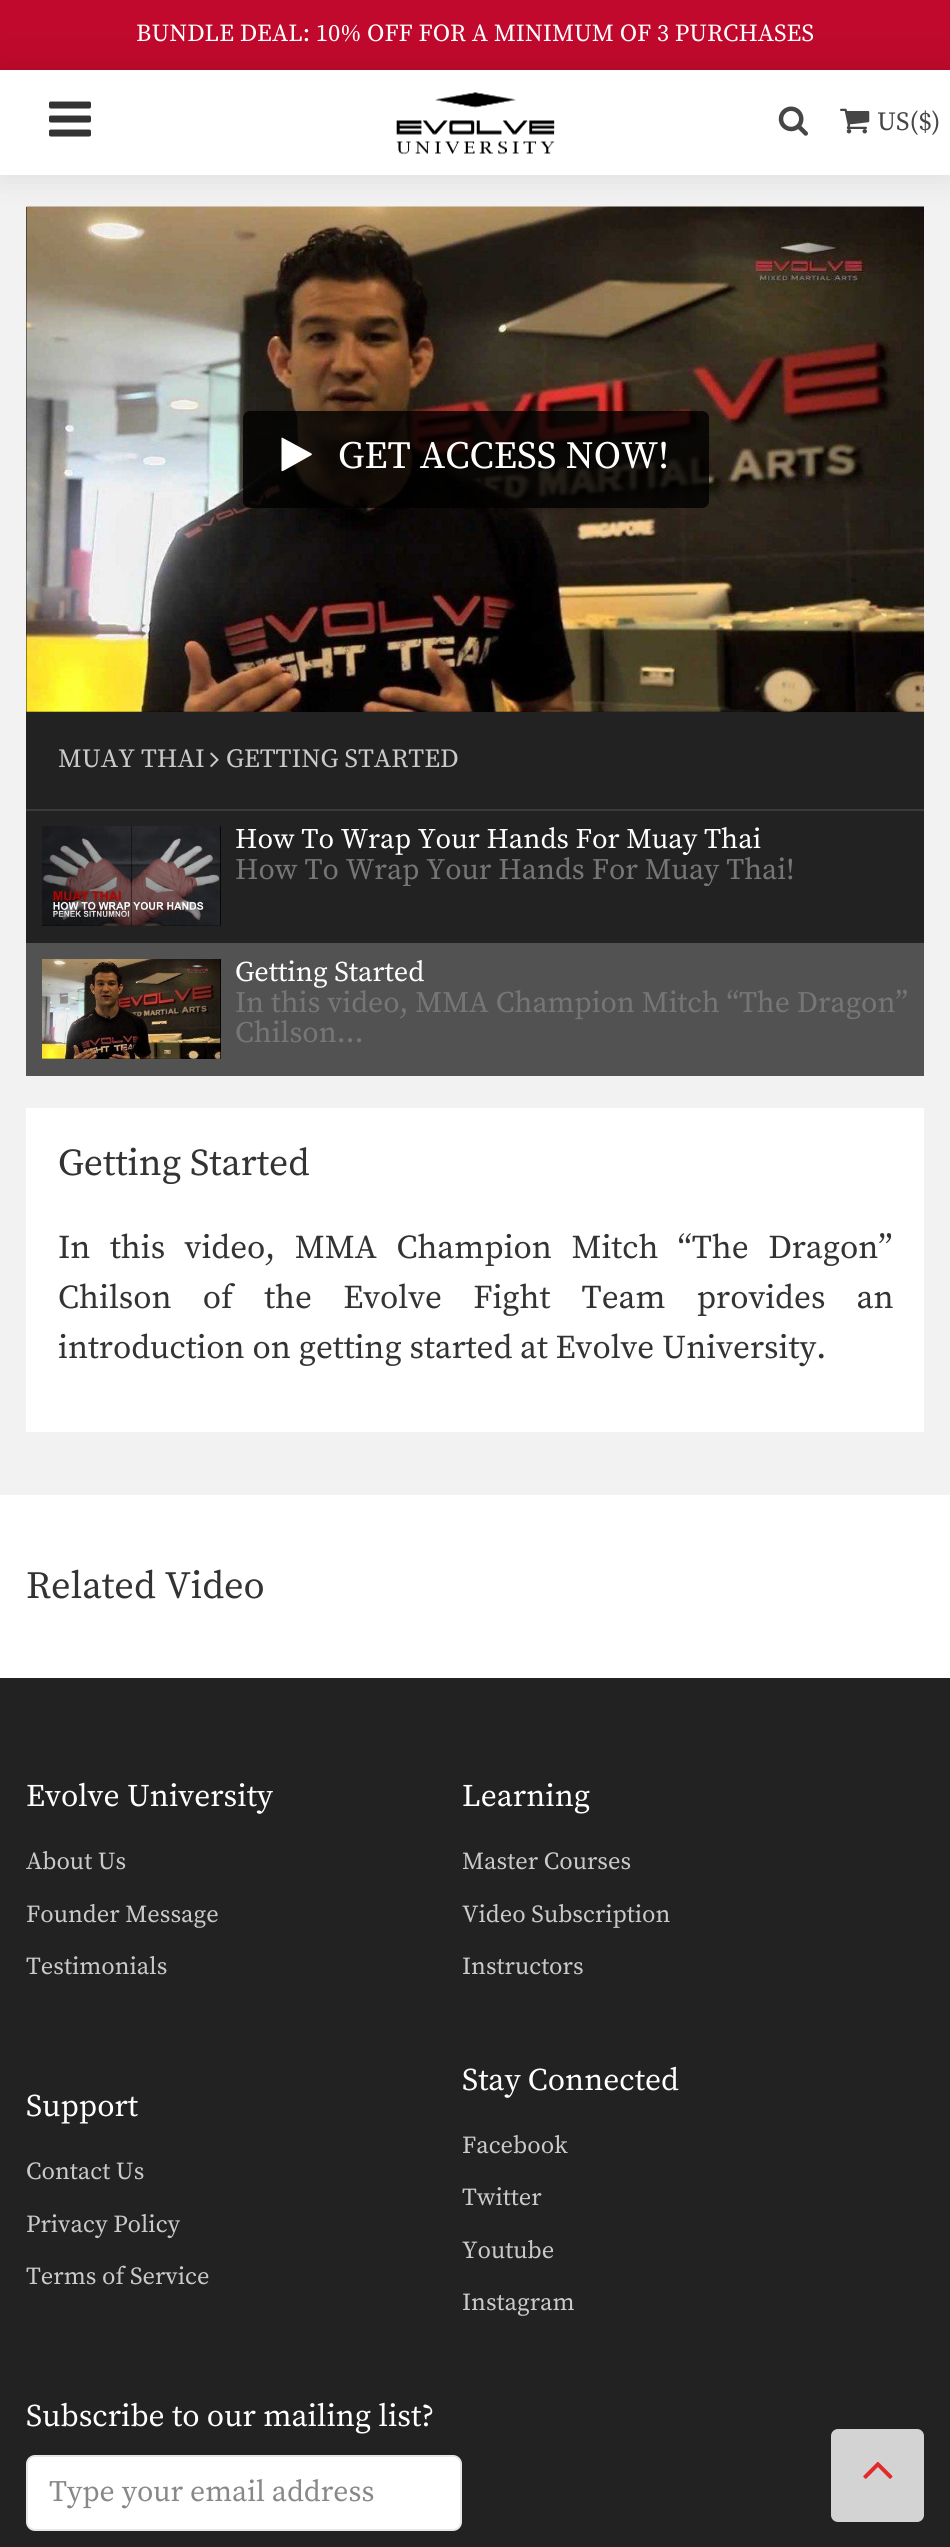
#include <cairo/cairo.h>
#include <math.h>
#include <stddef.h>

static cairo_t *cr;

static void use_color(int r, int g, int b) {
  cairo_set_source_rgb(cr, r / 255.0, g / 255.0, b / 255.0);
}

static void text(double x, double y, const char *s, const char *family, double size, int italic, int bold, int r, int g, int b) {
  cairo_select_font_face(cr, family, italic ? CAIRO_FONT_SLANT_ITALIC : CAIRO_FONT_SLANT_NORMAL,
    bold ? CAIRO_FONT_WEIGHT_BOLD : CAIRO_FONT_WEIGHT_NORMAL);
  cairo_set_font_size(cr, size);
  use_color(r, g, b);
  cairo_move_to(cr, x, y);
  cairo_show_text(cr, s);
}

static void spaced_text(double x, double y, const char *s, double letter, double word) {
  cairo_move_to(cr, x, y);
  while (*s) {
    char ch[5] = {0};
    int n = 0;
    do ch[n++] = *s++; while ((*s & 0xC0) == 0x80);
    cairo_show_text(cr, ch);
    cairo_rel_move_to(cr, letter + word * (*ch == ' '), 0);
  }
}

static void box(double x, double y, double w, double h, int r, int g, int b) {
  use_color(r, g, b);
  cairo_rectangle(cr, x, y, w, h);
  cairo_fill(cr);
}

static void round_rect(double x, double y, double w, double h, double r) {
  cairo_new_sub_path(cr);
  cairo_arc(cr, x + w - r, y + h - r, r, 0, M_PI / 2);
  cairo_arc(cr, x + r, y + h - r, r, M_PI / 2, M_PI);
  cairo_arc(cr, x + r, y + r, r, M_PI, 1.5 * M_PI);
  cairo_arc(cr, x + w - r, y + r, r, 1.5 * M_PI, 2 * M_PI);
  cairo_close_path(cr);
}

static void shadow(double x, double y, double w, double h, double r, double blur, double alpha) {
  cairo_push_group_with_content(cr, CAIRO_CONTENT_ALPHA);
  cairo_set_operator(cr, CAIRO_OPERATOR_SOURCE);
  for (int i = 15; i >= -15 && fmin(w, h) + blur * i / 3 > 0; i -= 2) {
    double e = blur * i / 6;
    cairo_set_source_rgba(cr, 0, 0, 0, alpha * erfc((i - 1) / 8.5) / 2);
    round_rect(x - e, y - e, w + 2 * e, h + 2 * e, fmax(0, fmin(r + e + blur * .6, fmin(w, h) / 2 + e)));
    cairo_fill(cr);
  }
  cairo_pattern_t *soft = cairo_pop_group(cr);
  cairo_mask(cr, soft);
  cairo_pattern_destroy(soft);
}

static void picture(const char *path, double x, double y, double w, double h) {
  cairo_surface_t *image = cairo_image_surface_create_from_png(path);
  cairo_save(cr);
  cairo_set_source_surface(cr, image, x, y);
  cairo_rectangle(cr, x, y, w, h);
  cairo_fill(cr);
  cairo_restore(cr);
  cairo_surface_destroy(image);
}

static void draw(void) {
  use_color(255, 255, 255);
  cairo_paint(cr);
  box(0, 0, 950, 70, 192, 9, 44);
  box(0, 175, 950, 1320, 242, 242, 242);
  box(26, 207, 898, 505, 0, 0, 0);
  picture("img_05.png", 26, 206, 898, 506);
  cairo_save(cr);
  cairo_set_fill_rule(cr, CAIRO_FILL_RULE_EVEN_ODD);
  cairo_new_path(cr);
  cairo_move_to(cr, 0, 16);
  cairo_line_to(cr, 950, 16);
  cairo_line_to(cr, 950, 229);
  cairo_line_to(cr, 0, 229);
  cairo_close_path(cr);
  cairo_move_to(cr, 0, 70);
  cairo_line_to(cr, 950, 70);
  cairo_line_to(cr, 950, 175);
  cairo_line_to(cr, 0, 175);
  cairo_close_path(cr);
  cairo_clip(cr);
  use_color(0, 0, 0);
  shadow(0, 70, 950, 105, 0, 17.5, 0.1);
  cairo_restore(cr);
  picture("img_01.png", 49, 101, 42, 36);
  picture("img_02.png", 396, 92, 159, 63);
  picture("img_03.png", 778, 106, 30, 30);
  picture("img_04.png", 840, 108, 30, 26);
  cairo_set_source_rgba(cr, 0, 0, 0, 0.8);
  round_rect(243, 411, 466, 97, 7);
  cairo_fill(cr);
  use_color(255, 255, 255);
  cairo_new_path(cr);
  cairo_move_to(cr, 311.5, 455);
  cairo_line_to(cr, 287.5, 468.5);
  cairo_curve_to(cr, 287, 468.5, 282.5, 472, 281.5, 471);
  cairo_line_to(cr, 281.5, 438);
  cairo_line_to(cr, 282, 437.5);
  cairo_line_to(cr, 311.5, 453.5);
  cairo_line_to(cr, 312, 454.5);
  cairo_close_path(cr);
  cairo_fill(cr);
  box(26, 712, 898, 231, 34, 34, 34);
  box(26, 809, 898, 2, 58, 58, 58);
  picture("img_06.png", 210, 752, 9, 16);
  box(42, 826, 179, 100, 0, 0, 0);
  picture("img_07.png", 42, 826, 179, 100);
  box(26, 943, 898, 133, 82, 82, 82);
  box(42, 959, 179, 100, 0, 0, 0);
  picture("img_08.png", 42, 959, 179, 100);
  box(26, 1108, 898, 324, 255, 255, 255);
  box(0, 1678, 950, 869, 34, 34, 34);
  use_color(255, 255, 255);
  round_rect(27, 2456, 434, 74, 8);
  cairo_fill_preserve(cr);
  use_color(231, 231, 231);
  cairo_stroke(cr);
  use_color(211, 211, 211);
  round_rect(831, 2429, 93, 93, 7);
  cairo_fill(cr);
  picture("img_09.png", 863, 2461, 30, 18);
  text(136, 41, "BUNDLE DEAL: 10% OFF FOR A MINIMUM OF 3 PURCHASES", "Source Serif Pro", 24.5, 0, 0, 255, 255, 255);
  text(877, 130, "US($)", "Source Serif Pro", 26.25, 0, 0, 70, 70, 70);
  text(338, 468, "GET ACCESS NOW!", "Source Serif Pro", 38.5, 0, 0, 255, 255, 255);
  text(58, 767, "MUAY THAI", "Source Serif Pro", 26.25, 0, 0, 202, 202, 202);
  text(226, 767, "GETTING STARTED", "Source Serif Pro", 26.25, 0, 0, 202, 202, 202);
  text(235, 848, "How To Wrap Your Hands For Muay Thai", "Source Serif Pro", 28.4, 0, 0, 255, 255, 255);
  cairo_save(cr);
  cairo_rectangle(cr, 235, 856, 673, 30);
  cairo_clip(cr);
  text(235, 879, "How To Wrap Your Hands For Muay Thai!", "Source Serif Pro", 29.75, 0, 0, 118, 118, 118);
  cairo_restore(cr);
  text(235, 981, "Getting Started", "Source Serif Pro", 28.4, 0, 0, 255, 255, 255);
  text(235, 1012, "In this video, MMA Champion Mitch “The Dragon”", "Source Serif Pro", 29.75, 0, 0, 118, 118, 118);
  text(235, 1042, "Chilson…", "Source Serif Pro", 29.75, 0, 0, 118, 118, 118);
  text(58, 1175, "Getting Started", "Source Serif Pro", 37.75, 0, 0, 51, 51, 51);
  cairo_set_font_size(cr, 33.25);
  spaced_text(58, 1258, "In this video, MMA Champion Mitch “The Dragon”", 0, 11.75);
  spaced_text(58, 1308, "Chilson of the Evolve Fight Team provides an", 0, 23.5);
  text(58, 1358, "introduction on getting started at Evolve University.", "Source Serif Pro", 33.25, 0, 0, 51, 51, 51);
  text(26, 1598, "Related Video", "Source Serif Pro", 38.5, 0, 0, 51, 51, 51);
  text(26, 1806, "Evolve University", "Source Serif Pro", 31.5, 0, 0, 255, 255, 255);
  text(26, 1869, "About Us", "Source Serif Pro", 24.5, 0, 0, 202, 202, 202);
  text(26, 1922, "Founder Message", "Source Serif Pro", 24.5, 0, 0, 202, 202, 202);
  text(26, 1974, "Testimonials", "Source Serif Pro", 24.5, 0, 0, 202, 202, 202);
  text(462, 1806, "Learning", "Source Serif Pro", 31.5, 0, 0, 255, 255, 255);
  text(462, 1869, "Master Courses", "Source Serif Pro", 24.5, 0, 0, 202, 202, 202);
  text(462, 1922, "Video Subscription", "Source Serif Pro", 24.5, 0, 0, 202, 202, 202);
  text(462, 1974, "Instructors", "Source Serif Pro", 24.5, 0, 0, 202, 202, 202);
  text(26, 2116, "Support", "Source Serif Pro", 31.5, 0, 0, 255, 255, 255);
  text(26, 2179, "Contact Us", "Source Serif Pro", 24.5, 0, 0, 202, 202, 202);
  text(26, 2232, "Privacy Policy", "Source Serif Pro", 24.5, 0, 0, 202, 202, 202);
  text(26, 2284, "Terms of Service", "Source Serif Pro", 24.5, 0, 0, 202, 202, 202);
  text(462, 2090, "Stay Connected", "Source Serif Pro", 31.5, 0, 0, 255, 255, 255);
  text(462, 2153, "Facebook", "Source Serif Pro", 24.5, 0, 0, 202, 202, 202);
  text(462, 2205, "Twitter", "Source Serif Pro", 24.5, 0, 0, 202, 202, 202);
  text(462, 2258, "Youtube", "Source Serif Pro", 24.5, 0, 0, 202, 202, 202);
  text(462, 2310, "Instagram", "Source Serif Pro", 24.5, 0, 0, 202, 202, 202);
  text(26, 2426, "Subscribe to our mailing list?", "Source Serif Pro", 31.5, 0, 0, 255, 255, 255);
  text(49, 2501, "Type your email address", "Source Serif Pro", 29.75, 0, 0, 136, 136, 136);
}

int main(void) {
  cairo_surface_t *surface = cairo_image_surface_create(CAIRO_FORMAT_RGB24, 950, 2547);
  cr = cairo_create(surface);
  cairo_font_options_t *options = cairo_font_options_create();
  cairo_font_options_set_hint_metrics(options, CAIRO_HINT_METRICS_OFF);
  cairo_font_options_set_hint_style(options, CAIRO_HINT_STYLE_NONE);
  cairo_set_font_options(cr, options);
  cairo_set_miter_limit(cr, 4);
  draw();
  cairo_surface_write_to_png(surface, "out.png");
  cairo_font_options_destroy(options);
  cairo_destroy(cr);
  cairo_surface_destroy(surface);
  return 0;
}
